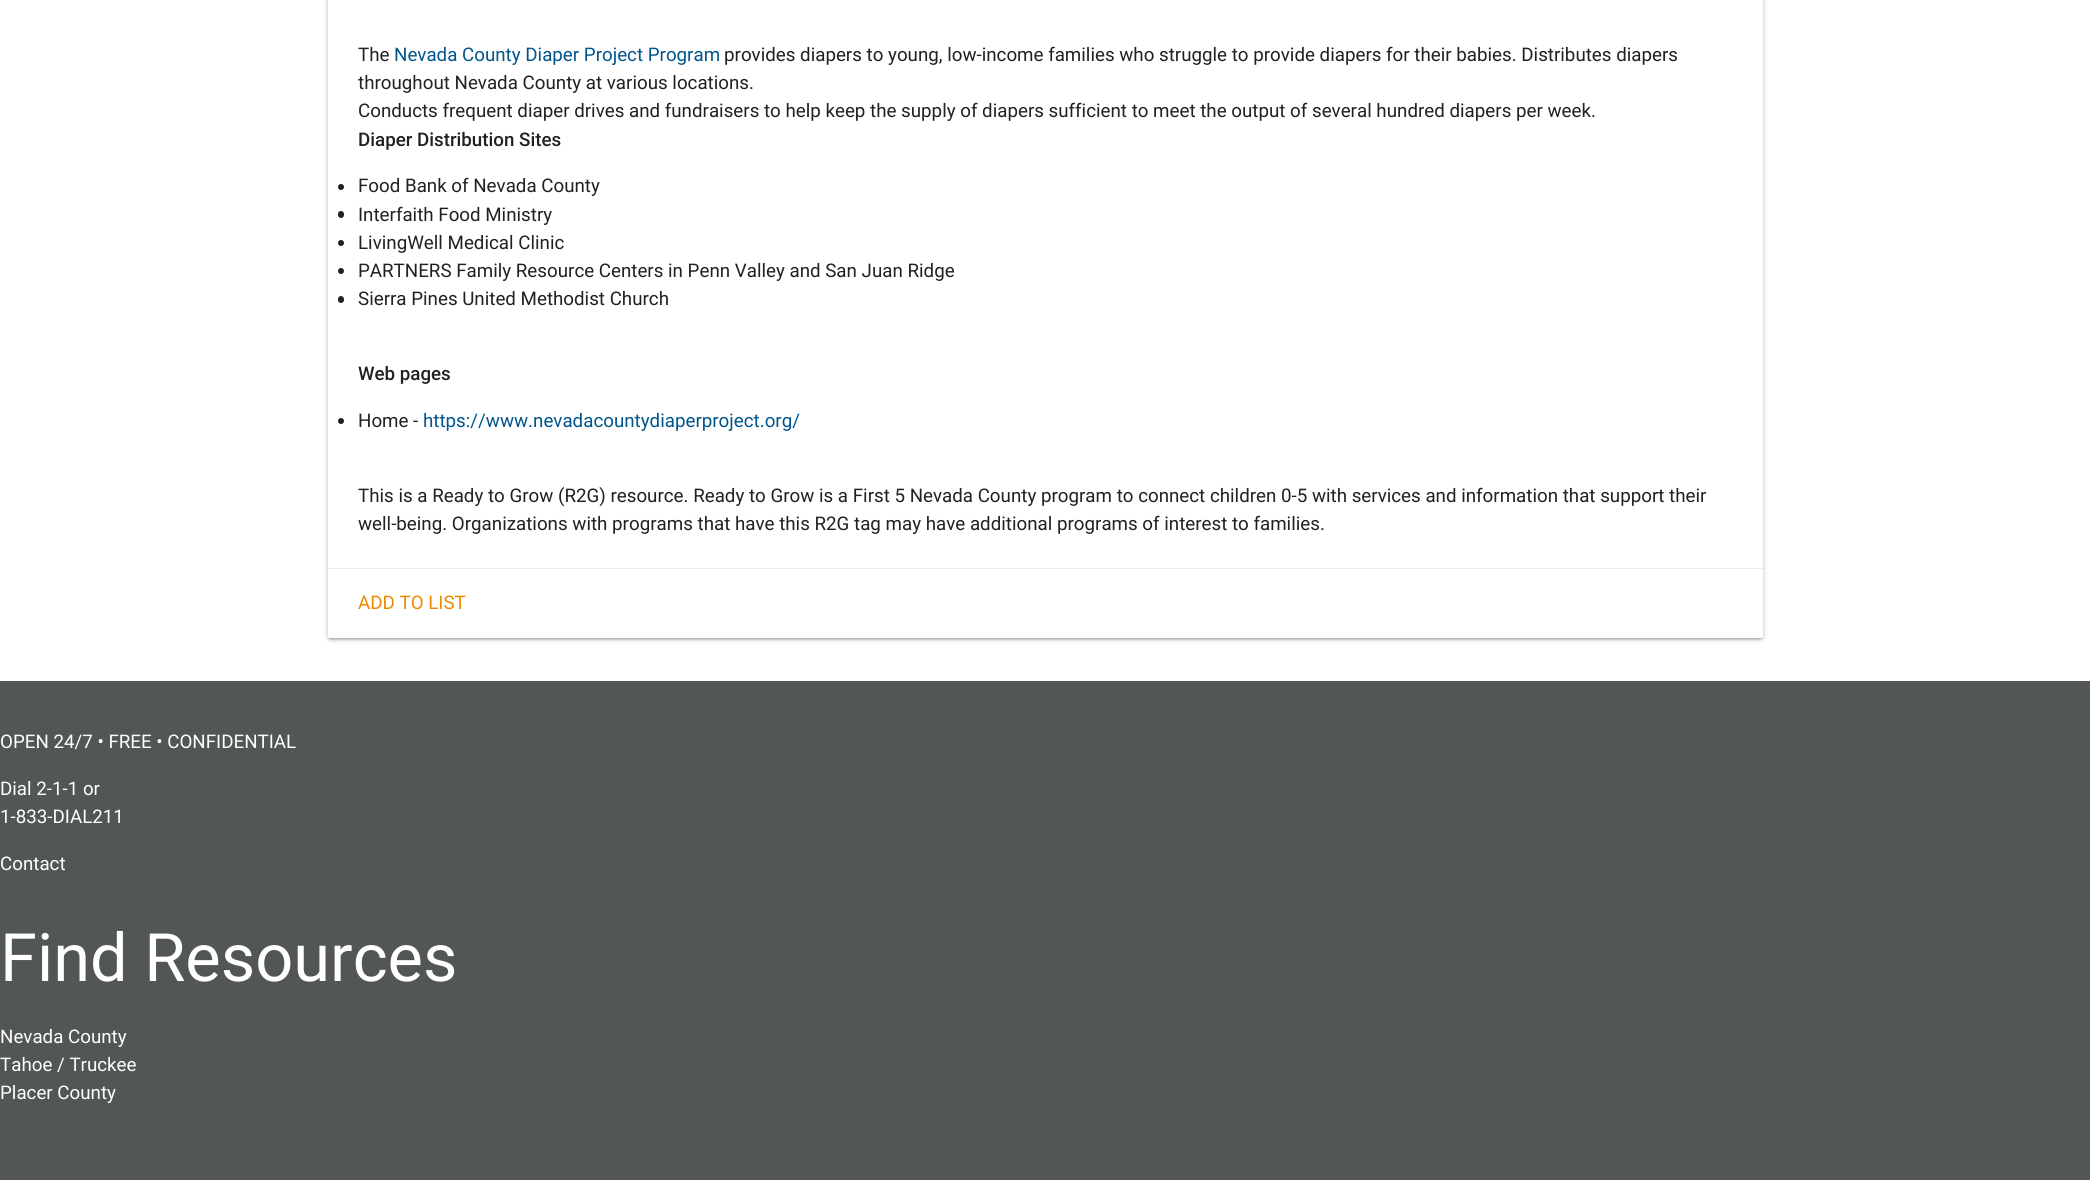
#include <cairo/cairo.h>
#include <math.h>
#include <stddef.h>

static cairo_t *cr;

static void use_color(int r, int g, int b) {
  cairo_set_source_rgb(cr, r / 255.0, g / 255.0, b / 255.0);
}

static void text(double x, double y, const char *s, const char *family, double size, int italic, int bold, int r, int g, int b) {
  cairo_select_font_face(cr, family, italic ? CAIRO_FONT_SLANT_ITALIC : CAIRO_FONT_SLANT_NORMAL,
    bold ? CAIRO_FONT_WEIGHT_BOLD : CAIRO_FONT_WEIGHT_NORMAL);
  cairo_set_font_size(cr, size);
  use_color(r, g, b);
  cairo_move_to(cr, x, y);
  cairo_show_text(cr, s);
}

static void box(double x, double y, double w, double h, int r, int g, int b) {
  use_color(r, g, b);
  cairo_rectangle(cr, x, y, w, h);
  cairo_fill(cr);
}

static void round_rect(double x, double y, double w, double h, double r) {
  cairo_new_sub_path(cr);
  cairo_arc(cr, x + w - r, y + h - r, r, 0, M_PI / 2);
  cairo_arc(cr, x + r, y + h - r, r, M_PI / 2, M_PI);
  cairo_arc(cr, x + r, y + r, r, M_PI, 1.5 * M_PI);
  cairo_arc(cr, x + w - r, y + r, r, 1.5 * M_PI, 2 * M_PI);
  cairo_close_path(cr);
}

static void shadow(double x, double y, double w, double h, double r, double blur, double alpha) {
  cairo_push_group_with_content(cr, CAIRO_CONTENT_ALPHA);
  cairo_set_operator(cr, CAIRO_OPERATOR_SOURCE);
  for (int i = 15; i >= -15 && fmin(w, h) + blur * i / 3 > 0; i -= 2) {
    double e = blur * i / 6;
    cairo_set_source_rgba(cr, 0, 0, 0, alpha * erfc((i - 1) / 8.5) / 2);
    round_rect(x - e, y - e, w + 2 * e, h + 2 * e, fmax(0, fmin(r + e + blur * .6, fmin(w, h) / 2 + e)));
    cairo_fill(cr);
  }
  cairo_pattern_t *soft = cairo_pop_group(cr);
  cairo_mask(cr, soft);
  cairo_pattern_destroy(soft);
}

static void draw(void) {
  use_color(255, 255, 255);
  cairo_paint(cr);
  use_color(0, 0, 0);
  shadow(328, -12, 1435, 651, 2.5, 3, 0.2);
  shadow(330, -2, 1430, 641, 0, 0.5, 0.12);
  shadow(328, -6, 1435, 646, 2.5, 1, 0.14);
  use_color(255, 255, 255);
  round_rect(328, -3, 1435, 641, 2.5);
  cairo_fill(cr);
  use_color(33, 33, 33);
  cairo_arc(cr, 341, 187, 3, 0, 2 * M_PI);
  cairo_fill(cr);
  round_rect(338, 211, 6, 7, 3);
  cairo_fill(cr);
  cairo_arc(cr, 341, 243, 3, 0, 2 * M_PI);
  cairo_fill(cr);
  cairo_arc(cr, 341, 271, 3, 0, 2 * M_PI);
  cairo_fill(cr);
  round_rect(338, 296, 6, 7, 3);
  cairo_fill(cr);
  cairo_arc(cr, 341, 421, 3, 0, 2 * M_PI);
  cairo_fill(cr);
  use_color(255, 255, 255);
  cairo_new_path(cr);
  cairo_move_to(cr, 328, 568);
  cairo_line_to(cr, 1763, 568);
  cairo_line_to(cr, 1763, 635.5);
  cairo_curve_to(cr, 1763, 637, 1762, 638, 1760.5, 638);
  cairo_line_to(cr, 330.5, 638);
  cairo_curve_to(cr, 329, 638, 328, 637, 328, 635.5);
  cairo_close_path(cr);
  cairo_fill(cr);
  box(328, 568, 1435, 1, 236, 236, 236);
  box(0, 681, 2090, 499, 82, 86, 86);
  text(358, 61, "The", "Roboto", 18.75, 0, 0, 33, 33, 33);
  text(394, 61, "Nevada County Diaper Project Program", "Roboto", 18.75, 0, 0, 0, 85, 140);
  text(724, 61, "provides diapers to young, low-income families who struggle to provide diapers for their babies. Distributes diapers", "Roboto", 18.75, 0, 0, 33, 33, 33);
  text(358, 89, "throughout Nevada County at various locations.", "Roboto", 18.75, 0, 0, 33, 33, 33);
  text(358, 117, "Conducts frequent diaper drives and fundraisers to help keep the supply of diapers sufficient to meet the output of several hundred diapers per week.", "Roboto", 18.75, 0, 0, 33, 33, 33);
  text(358, 146, "Diaper Distribution Sites", "Roboto Medium", 18.75, 0, 0, 33, 33, 33);
  text(358, 192, "Food Bank of Nevada County", "Roboto", 18.75, 0, 0, 33, 33, 33);
  text(358, 221, "Interfaith Food Ministry", "Roboto", 18.75, 0, 0, 33, 33, 33);
  text(358, 249, "LivingWell Medical Clinic", "Roboto", 18.75, 0, 0, 33, 33, 33);
  text(358, 277, "PARTNERS Family Resource Centers in Penn Valley and San Juan Ridge", "Roboto", 18.75, 0, 0, 33, 33, 33);
  text(358, 305, "Sierra Pines United Methodist Church", "Roboto", 18.75, 0, 0, 33, 33, 33);
  text(358, 380, "Web pages", "Roboto Medium", 18.75, 0, 0, 33, 33, 33);
  text(358, 427, "Home -", "Roboto", 18.75, 0, 0, 33, 33, 33);
  text(423, 427, "https://www.nevadacountydiaperproject.org/", "Roboto", 18.75, 0, 0, 0, 85, 140);
  text(358, 502, "This is a Ready to Grow (R2G) resource. Ready to Grow is a First 5 Nevada County program to connect children 0-5 with services and information that support their", "Roboto", 18.75, 0, 0, 33, 33, 33);
  text(358, 530, "well-being. Organizations with programs that have this R2G tag may have additional programs of interest to families.", "Roboto", 18.75, 0, 0, 33, 33, 33);
  text(358, 609, "ADD TO LIST", "Roboto", 18.75, 0, 0, 237, 139, 0);
  text(0, 748, "OPEN 24/7 • FREE • CONFIDENTIAL", "Roboto", 18.75, 0, 0, 255, 255, 255);
  text(0, 795, "Dial 2-1-1 or", "Roboto", 18.75, 0, 0, 255, 255, 255);
  text(0, 823, "1-833-DIAL211", "Roboto", 18.75, 0, 0, 255, 255, 255);
  text(0, 870, "Contact", "Roboto", 18.75, 0, 0, 255, 255, 255);
  text(0, 981, "Find Resources", "Roboto", 66.75, 0, 0, 255, 255, 255);
  text(0, 1043, "Nevada County", "Roboto", 18.75, 0, 0, 255, 255, 255);
  text(0, 1071, "Tahoe / Truckee", "Roboto", 18.75, 0, 0, 255, 255, 255);
  text(0, 1099, "Placer County", "Roboto", 18.75, 0, 0, 255, 255, 255);
}

int main(void) {
  cairo_surface_t *surface = cairo_image_surface_create(CAIRO_FORMAT_RGB24, 2090, 1180);
  cr = cairo_create(surface);
  cairo_font_options_t *options = cairo_font_options_create();
  cairo_font_options_set_hint_metrics(options, CAIRO_HINT_METRICS_OFF);
  cairo_font_options_set_hint_style(options, CAIRO_HINT_STYLE_NONE);
  cairo_set_font_options(cr, options);
  cairo_set_miter_limit(cr, 4);
  draw();
  cairo_surface_write_to_png(surface, "out.png");
  cairo_font_options_destroy(options);
  cairo_destroy(cr);
  cairo_surface_destroy(surface);
  return 0;
}
